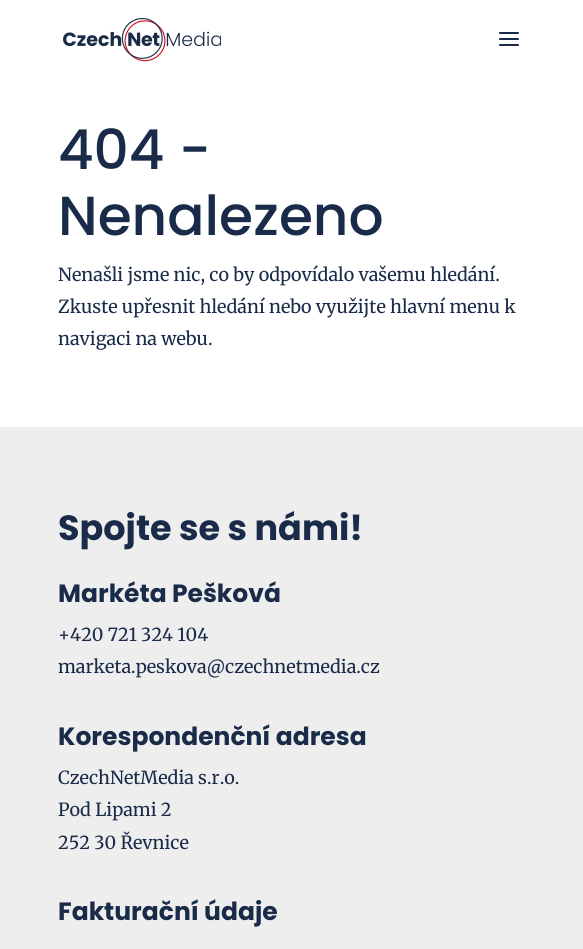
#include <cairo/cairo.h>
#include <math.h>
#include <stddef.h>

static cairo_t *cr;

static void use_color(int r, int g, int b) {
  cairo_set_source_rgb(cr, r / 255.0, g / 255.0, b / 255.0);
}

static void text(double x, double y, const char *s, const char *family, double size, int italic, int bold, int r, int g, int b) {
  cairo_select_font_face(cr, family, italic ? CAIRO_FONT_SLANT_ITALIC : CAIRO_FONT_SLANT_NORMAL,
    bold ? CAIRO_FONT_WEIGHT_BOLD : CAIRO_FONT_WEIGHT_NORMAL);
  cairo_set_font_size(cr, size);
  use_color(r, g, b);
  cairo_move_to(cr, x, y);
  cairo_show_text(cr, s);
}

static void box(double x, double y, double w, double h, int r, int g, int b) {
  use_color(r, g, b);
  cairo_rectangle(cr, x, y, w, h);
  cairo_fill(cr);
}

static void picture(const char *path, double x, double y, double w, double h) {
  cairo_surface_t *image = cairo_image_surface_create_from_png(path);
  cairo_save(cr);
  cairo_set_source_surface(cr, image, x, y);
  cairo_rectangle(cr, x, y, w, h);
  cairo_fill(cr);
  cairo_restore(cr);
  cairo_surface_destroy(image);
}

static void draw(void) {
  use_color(255, 255, 255);
  cairo_paint(cr);
  picture("img_01.png", 63, 18, 158, 44);
  picture("img_02.png", 499, 32, 20, 14);
  box(0, 427, 583, 522, 238, 238, 238);
  text(58, 169, "404 -", "Poppins Medium", 55, 0, 0, 25, 43, 72);
  text(58, 235, "Nenalezeno", "Poppins Medium", 55, 0, 0, 25, 43, 72);
  text(58, 281, "Nenašli jsme nic, co by odpovídalo vašemu hledání.", "Merriweather", 18, 0, 0, 25, 43, 72);
  text(58, 313, "Zkuste upřesnit hledání nebo využijte hlavní menu k", "Merriweather", 18, 0, 0, 25, 43, 72);
  text(58, 345, "navigaci na webu.", "Merriweather", 18, 0, 0, 25, 43, 72);
  text(58, 540, "Spojte se s námi!", "Poppins", 35, 0, 1, 25, 43, 72);
  text(58, 602, "Markéta Pešková", "Poppins", 25, 0, 1, 25, 43, 72);
  text(58, 641, "+420 721 324 104", "Merriweather", 18, 0, 0, 25, 43, 72);
  text(58, 673, "marketa.peskova@czechnetmedia.cz", "Merriweather", 18, 0, 0, 25, 43, 72);
  text(58, 745, "Korespondenční adresa", "Poppins", 25, 0, 1, 25, 43, 72);
  text(58, 784, "CzechNetMedia s.r.o.", "Merriweather", 18, 0, 0, 25, 43, 72);
  text(58, 816, "Pod Lipami 2", "Merriweather", 18, 0, 0, 25, 43, 72);
  text(58, 849, "252 30 Řevnice", "Merriweather", 18, 0, 0, 25, 43, 72);
  text(58, 920, "Fakturační údaje", "Poppins", 25, 0, 1, 25, 43, 72);
}

int main(void) {
  cairo_surface_t *surface = cairo_image_surface_create(CAIRO_FORMAT_RGB24, 583, 949);
  cr = cairo_create(surface);
  cairo_font_options_t *options = cairo_font_options_create();
  cairo_font_options_set_hint_metrics(options, CAIRO_HINT_METRICS_OFF);
  cairo_font_options_set_hint_style(options, CAIRO_HINT_STYLE_NONE);
  cairo_set_font_options(cr, options);
  cairo_set_miter_limit(cr, 4);
  draw();
  cairo_surface_write_to_png(surface, "out.png");
  cairo_font_options_destroy(options);
  cairo_destroy(cr);
  cairo_surface_destroy(surface);
  return 0;
}
